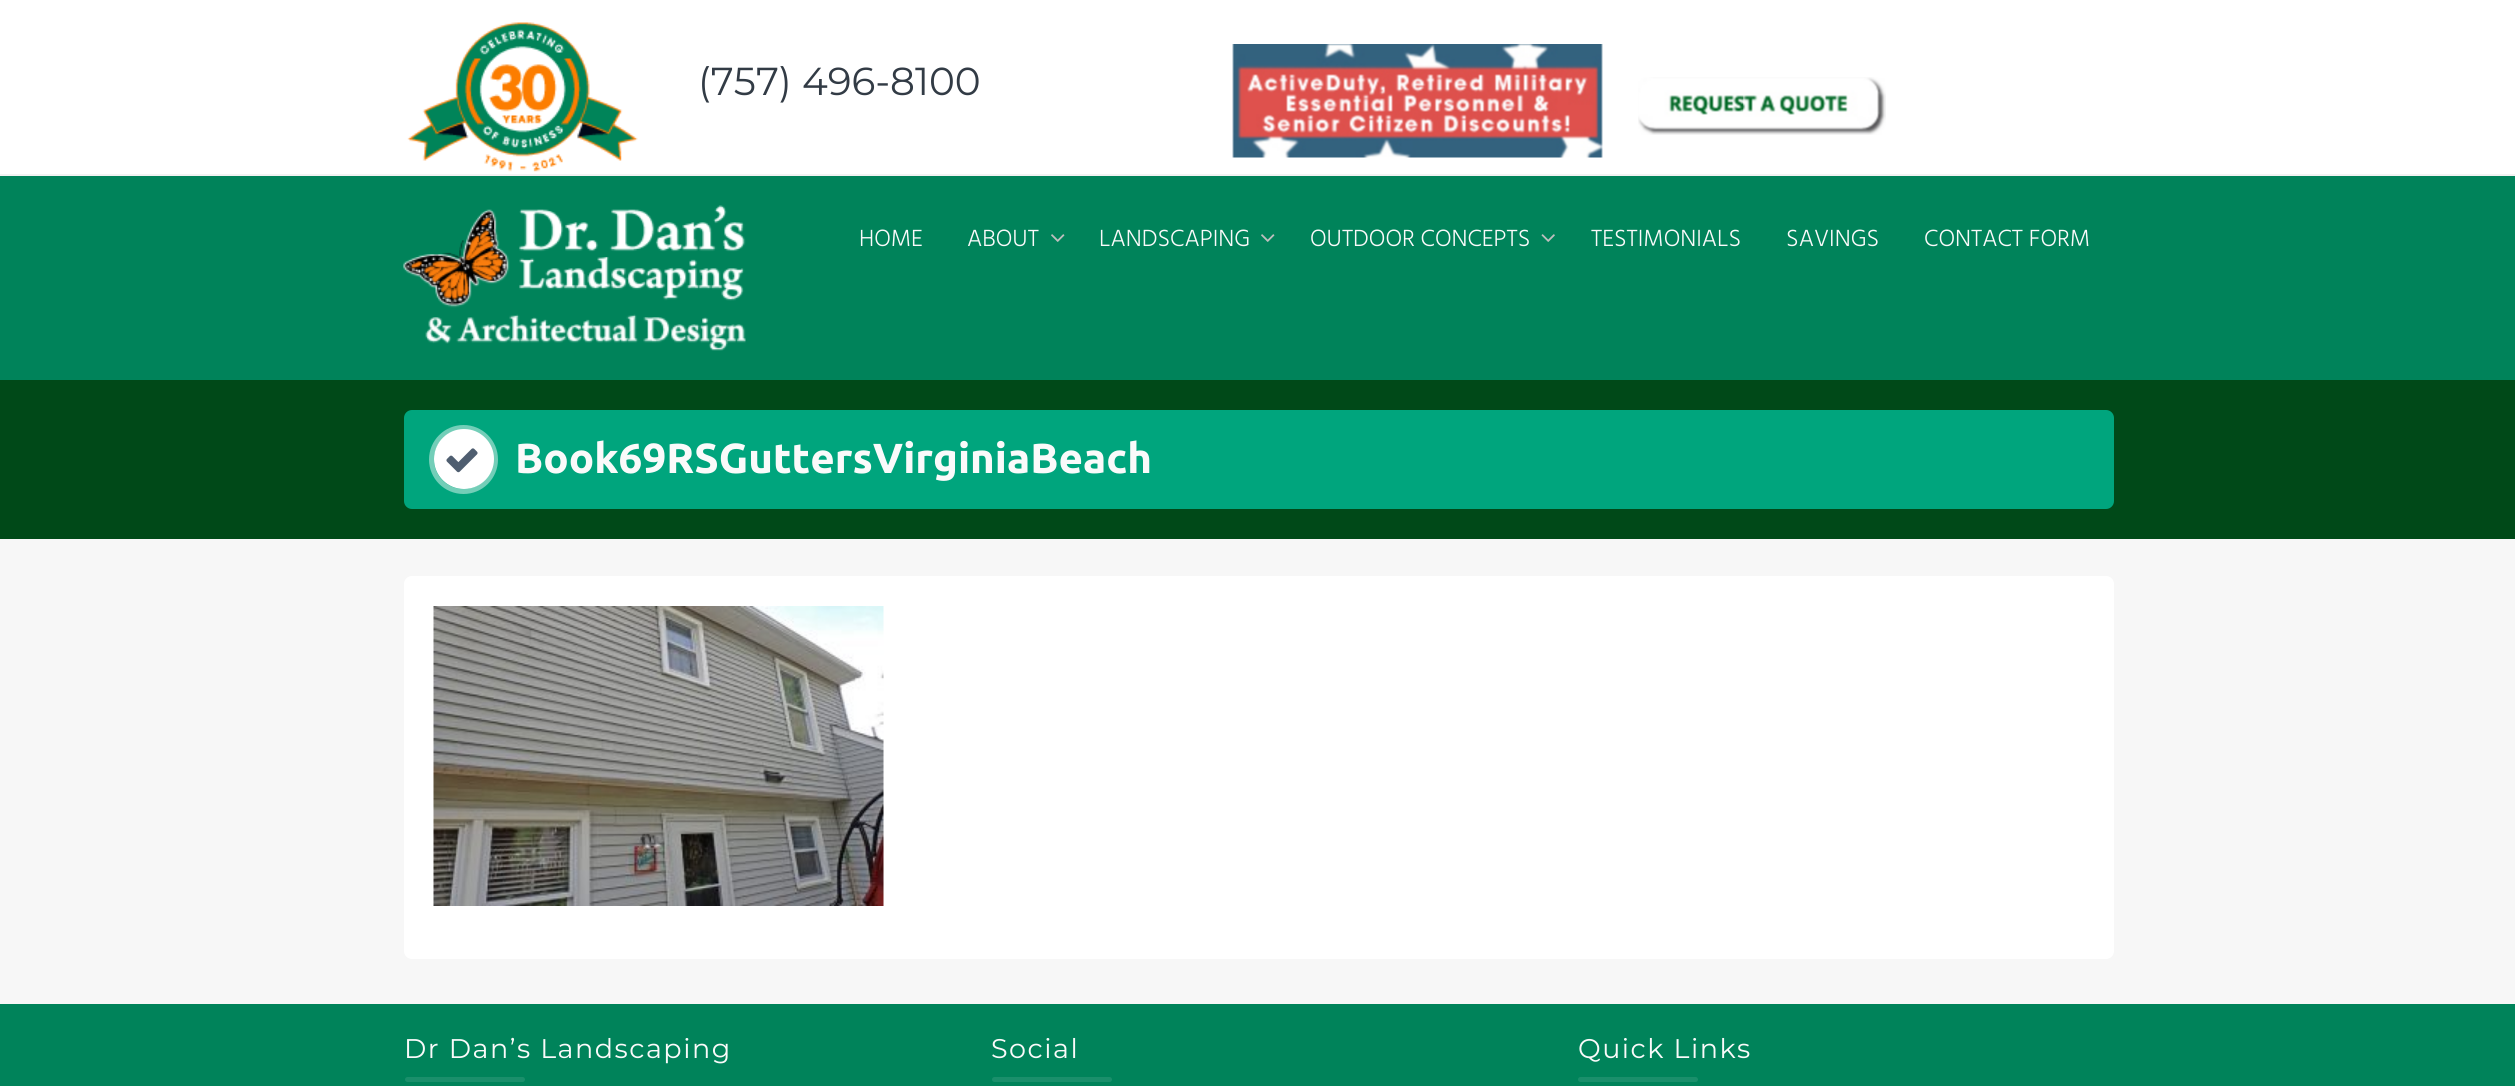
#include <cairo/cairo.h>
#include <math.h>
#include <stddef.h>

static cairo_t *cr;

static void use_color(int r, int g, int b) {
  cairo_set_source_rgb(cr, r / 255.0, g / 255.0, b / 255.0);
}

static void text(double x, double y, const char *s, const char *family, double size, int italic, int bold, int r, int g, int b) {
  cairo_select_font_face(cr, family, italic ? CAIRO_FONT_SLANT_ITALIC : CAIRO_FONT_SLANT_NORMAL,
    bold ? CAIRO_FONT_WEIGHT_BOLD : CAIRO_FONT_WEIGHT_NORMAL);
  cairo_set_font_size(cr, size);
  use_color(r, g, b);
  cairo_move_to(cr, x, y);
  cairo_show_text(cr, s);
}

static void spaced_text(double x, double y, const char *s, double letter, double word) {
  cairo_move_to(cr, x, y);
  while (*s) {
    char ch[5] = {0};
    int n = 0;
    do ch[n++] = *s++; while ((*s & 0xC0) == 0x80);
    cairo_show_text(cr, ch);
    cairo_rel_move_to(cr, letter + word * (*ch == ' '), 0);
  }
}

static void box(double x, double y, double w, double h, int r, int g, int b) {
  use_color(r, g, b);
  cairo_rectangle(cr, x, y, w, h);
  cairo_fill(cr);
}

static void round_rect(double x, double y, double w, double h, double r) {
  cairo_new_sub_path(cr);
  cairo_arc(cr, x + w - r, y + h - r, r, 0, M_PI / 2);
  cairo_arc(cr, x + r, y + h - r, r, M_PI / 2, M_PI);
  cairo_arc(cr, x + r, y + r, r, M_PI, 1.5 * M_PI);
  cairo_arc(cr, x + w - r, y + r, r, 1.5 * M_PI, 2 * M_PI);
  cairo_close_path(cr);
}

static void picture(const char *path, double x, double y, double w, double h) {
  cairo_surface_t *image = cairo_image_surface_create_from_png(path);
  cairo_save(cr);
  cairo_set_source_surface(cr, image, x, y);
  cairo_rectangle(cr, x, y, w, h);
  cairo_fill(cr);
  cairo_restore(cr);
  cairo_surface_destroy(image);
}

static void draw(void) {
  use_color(247, 247, 247);
  cairo_paint(cr);
  box(0, 176, 2515, 204, 0, 131, 90);
  box(0, 0, 2515, 174, 255, 255, 255);
  box(0, 174, 2515, 2, 242, 242, 242);
  picture("img_01.png", 407, 22, 231, 150);
  picture("img_02.png", 1232, 44, 371, 114);
  picture("img_03.png", 1638, 77, 248, 58);
  picture("img_04.png", 403, 205, 343, 146);
  picture("img_05.png", 1051, 234, 14, 8);
  picture("img_05.png", 1261, 234, 14, 8);
  picture("img_06.png", 1541, 234, 14, 8);
  box(0, 380, 2515, 159, 0, 73, 24);
  use_color(0, 165, 125);
  round_rect(404, 410, 1710, 99, 8);
  cairo_fill(cr);
  cairo_arc(cr, 463.5, 459.5, 32, 0, 2 * M_PI);
  use_color(115, 206, 184);
  cairo_set_line_width(cr, 5);
  cairo_stroke(cr);
  use_color(255, 255, 255);
  cairo_arc(cr, 464, 459, 30, 0, 2 * M_PI);
  cairo_fill(cr);
  picture("img_07.png", 446, 448, 32, 25);
  round_rect(404, 576, 1710, 383, 8);
  cairo_fill(cr);
  picture("img_08.png", 433, 606, 451, 300);
  box(0, 1004, 2515, 82, 0, 131, 90);
  use_color(26, 143, 107);
  round_rect(405, 1077, 120, 5, 2.5);
  cairo_fill(cr);
  round_rect(992, 1077, 120, 5, 2.5);
  cairo_fill(cr);
  round_rect(1578, 1077, 120, 5, 2.5);
  cairo_fill(cr);
  text(698, 95, "(757) 496-8100", "Montserrat", 39, 0, 0, 50, 59, 69);
  text(859, 246, "HOME", "Hind Light", 24, 0, 0, 250, 250, 250);
  text(967, 246, "ABOUT", "Hind Light", 24, 0, 0, 250, 250, 250);
  text(1099, 246, "LANDSCAPING", "Hind Light", 24, 0, 0, 250, 250, 250);
  text(1310, 246, "OUTDOOR CONCEPTS", "Hind Light", 24, 0, 0, 250, 250, 250);
  text(1591, 246, "TESTIMONIALS", "Hind Light", 24, 0, 0, 250, 250, 250);
  text(1786, 246, "SAVINGS", "Hind Light", 24, 0, 0, 250, 250, 250);
  text(1924, 246, "CONTACT FORM", "Hind Light", 24, 0, 0, 250, 250, 250);
  text(515, 473, "Book69RSGuttersVirginiaBeach", "Ubuntu", 42, 0, 1, 250, 250, 250);
  cairo_select_font_face(cr, "Montserrat", CAIRO_FONT_SLANT_NORMAL, CAIRO_FONT_WEIGHT_NORMAL);
  cairo_set_font_size(cr, 27);
  spaced_text(404, 1058, "Dr Dan’s Landscaping", 1.5, 0);
  spaced_text(991, 1058, "Social", 1.5, 0);
  spaced_text(1578, 1058, "Quick Links", 1.5, 0);
}

int main(void) {
  cairo_surface_t *surface = cairo_image_surface_create(CAIRO_FORMAT_RGB24, 2515, 1086);
  cr = cairo_create(surface);
  cairo_font_options_t *options = cairo_font_options_create();
  cairo_font_options_set_hint_metrics(options, CAIRO_HINT_METRICS_OFF);
  cairo_font_options_set_hint_style(options, CAIRO_HINT_STYLE_NONE);
  cairo_set_font_options(cr, options);
  cairo_set_miter_limit(cr, 4);
  draw();
  cairo_surface_write_to_png(surface, "out.png");
  cairo_font_options_destroy(options);
  cairo_destroy(cr);
  cairo_surface_destroy(surface);
  return 0;
}
